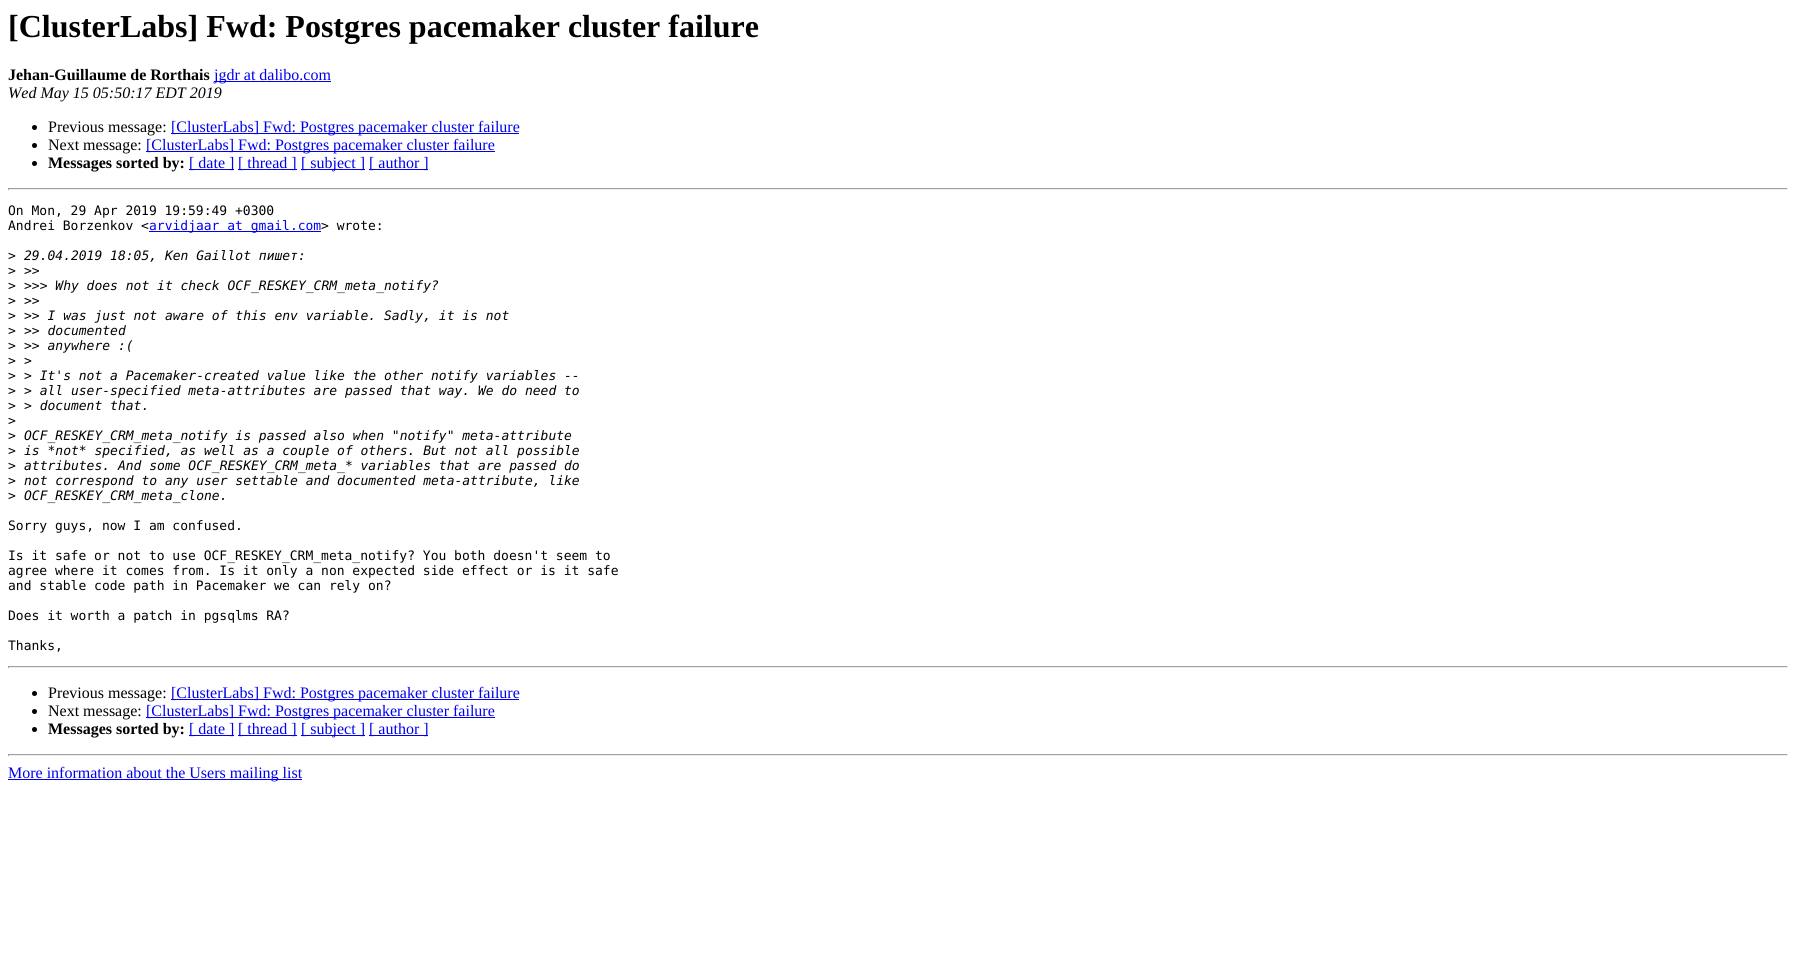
#include <cairo/cairo.h>
#include <math.h>
#include <stddef.h>

static cairo_t *cr;

static void use_color(int r, int g, int b) {
  cairo_set_source_rgb(cr, r / 255.0, g / 255.0, b / 255.0);
}

static void text(double x, double y, const char *s, const char *family, double size, int italic, int bold, int r, int g, int b) {
  cairo_select_font_face(cr, family, italic ? CAIRO_FONT_SLANT_ITALIC : CAIRO_FONT_SLANT_NORMAL,
    bold ? CAIRO_FONT_WEIGHT_BOLD : CAIRO_FONT_WEIGHT_NORMAL);
  cairo_set_font_size(cr, size);
  use_color(r, g, b);
  cairo_move_to(cr, x, y);
  cairo_show_text(cr, s);
}

static void box(double x, double y, double w, double h, int r, int g, int b) {
  use_color(r, g, b);
  cairo_rectangle(cr, x, y, w, h);
  cairo_fill(cr);
}

static void draw(void) {
  use_color(255, 255, 255);
  cairo_paint(cr);
  box(214, 81, 117, 1, 0, 0, 238);
  use_color(0, 0, 0);
  cairo_arc(cr, 34.5, 127.5, 2.5, 0, 2 * M_PI);
  cairo_fill(cr);
  box(171, 133, 348, 1, 0, 0, 238);
  use_color(0, 0, 0);
  cairo_arc(cr, 34.5, 145.5, 2.5, 0, 2 * M_PI);
  cairo_fill(cr);
  box(146, 151, 349, 1, 0, 0, 238);
  use_color(0, 0, 0);
  cairo_arc(cr, 34.5, 163.5, 2.5, 0, 2 * M_PI);
  cairo_fill(cr);
  box(189, 169, 45, 1, 0, 0, 238);
  box(238, 169, 59, 1, 0, 0, 238);
  box(301, 169, 64, 1, 0, 0, 238);
  box(369, 169, 59, 1, 0, 0, 238);
  box(8, 188, 1780, 1, 159, 159, 159);
  box(1787, 188, 1, 2, 238, 238, 238);
  box(8, 189, 1780, 1, 238, 238, 238);
  box(8, 188, 1, 2, 159, 159, 159);
  box(149, 231, 172, 1, 0, 0, 238);
  box(8, 666, 1780, 1, 159, 159, 159);
  box(1787, 666, 1, 2, 238, 238, 238);
  box(8, 667, 1780, 1, 238, 238, 238);
  box(8, 666, 1, 2, 159, 159, 159);
  use_color(0, 0, 0);
  cairo_arc(cr, 34.5, 693.5, 2.5, 0, 2 * M_PI);
  cairo_fill(cr);
  box(171, 699, 348, 1, 0, 0, 238);
  use_color(0, 0, 0);
  cairo_arc(cr, 34.5, 711.5, 2.5, 0, 2 * M_PI);
  cairo_fill(cr);
  box(146, 717, 349, 1, 0, 0, 238);
  use_color(0, 0, 0);
  cairo_arc(cr, 34.5, 729.5, 2.5, 0, 2 * M_PI);
  cairo_fill(cr);
  box(189, 735, 45, 1, 0, 0, 238);
  box(238, 735, 59, 1, 0, 0, 238);
  box(301, 735, 64, 1, 0, 0, 238);
  box(369, 735, 59, 1, 0, 0, 238);
  box(8, 754, 1780, 1, 159, 159, 159);
  box(1787, 754, 1, 2, 238, 238, 238);
  box(8, 755, 1780, 1, 238, 238, 238);
  box(8, 754, 1, 2, 159, 159, 159);
  box(8, 779, 294, 1, 0, 0, 238);
  text(8, 37, "[ClusterLabs] Fwd: Postgres pacemaker cluster failure", "Liberation Serif", 32, 0, 1, 0, 0, 0);
  text(8, 80, "Jehan-Guillaume de Rorthais", "Liberation Serif", 16, 0, 1, 0, 0, 0);
  text(214, 80, "jgdr at dalibo.com", "Liberation Serif", 16, 0, 0, 0, 0, 238);
  text(8, 98, "Wed May 15 05:50:17 EDT 2019", "Liberation Serif", 16, 1, 0, 0, 0, 0);
  text(48, 132, "Previous message:", "Liberation Serif", 16, 0, 0, 0, 0, 0);
  text(171, 132, "[ClusterLabs] Fwd: Postgres pacemaker cluster failure", "Liberation Serif", 16, 0, 0, 0, 0, 238);
  text(48, 150, "Next message:", "Liberation Serif", 16, 0, 0, 0, 0, 0);
  text(146, 150, "[ClusterLabs] Fwd: Postgres pacemaker cluster failure", "Liberation Serif", 16, 0, 0, 0, 0, 238);
  text(48, 168, "Messages sorted by:", "Liberation Serif", 16, 0, 1, 0, 0, 0);
  text(189, 168, "[ date ]", "Liberation Serif", 16, 0, 0, 0, 0, 238);
  text(238, 168, "[ thread ]", "Liberation Serif", 16, 0, 0, 0, 0, 238);
  text(301, 168, "[ subject ]", "Liberation Serif", 16, 0, 0, 0, 0, 238);
  text(369, 168, "[ author ]", "Liberation Serif", 16, 0, 0, 0, 0, 238);
  text(8, 215, "On Mon, 29 Apr 2019 19:59:49 +0300", "DejaVu Sans Mono", 13, 0, 0, 0, 0, 0);
  text(8, 230, "Andrei Borzenkov <", "DejaVu Sans Mono", 13, 0, 0, 0, 0, 0);
  text(149, 230, "arvidjaar at gmail.com", "DejaVu Sans Mono", 13, 0, 0, 0, 0, 238);
  text(321, 230, "> wrote:", "DejaVu Sans Mono", 13, 0, 0, 0, 0, 0);
  text(8, 260, ">", "DejaVu Sans Mono", 13, 0, 0, 0, 0, 0);
  text(24, 260, "29.04.2019 18:05, Ken Gaillot пишет:", "DejaVu Sans Mono", 13, 1, 0, 0, 0, 0);
  text(8, 275, ">", "DejaVu Sans Mono", 13, 0, 0, 0, 0, 0);
  text(24, 275, ">>", "DejaVu Sans Mono", 13, 1, 0, 0, 0, 0);
  text(8, 290, ">", "DejaVu Sans Mono", 13, 0, 0, 0, 0, 0);
  text(24, 290, ">>> Why does not it check OCF_RESKEY_CRM_meta_notify?", "DejaVu Sans Mono", 13, 1, 0, 0, 0, 0);
  text(8, 305, ">", "DejaVu Sans Mono", 13, 0, 0, 0, 0, 0);
  text(24, 305, ">>", "DejaVu Sans Mono", 13, 1, 0, 0, 0, 0);
  text(8, 320, ">", "DejaVu Sans Mono", 13, 0, 0, 0, 0, 0);
  text(24, 320, ">> I was just not aware of this env variable. Sadly, it is not", "DejaVu Sans Mono", 13, 1, 0, 0, 0, 0);
  text(8, 335, ">", "DejaVu Sans Mono", 13, 0, 0, 0, 0, 0);
  text(24, 335, ">> documented", "DejaVu Sans Mono", 13, 1, 0, 0, 0, 0);
  text(8, 350, ">", "DejaVu Sans Mono", 13, 0, 0, 0, 0, 0);
  text(24, 350, ">> anywhere :(", "DejaVu Sans Mono", 13, 1, 0, 0, 0, 0);
  text(8, 365, ">", "DejaVu Sans Mono", 13, 0, 0, 0, 0, 0);
  text(24, 365, ">", "DejaVu Sans Mono", 13, 1, 0, 0, 0, 0);
  text(8, 380, ">", "DejaVu Sans Mono", 13, 0, 0, 0, 0, 0);
  text(24, 380, "> It's not a Pacemaker-created value like the other notify variables --", "DejaVu Sans Mono", 13, 1, 0, 0, 0, 0);
  text(8, 395, ">", "DejaVu Sans Mono", 13, 0, 0, 0, 0, 0);
  text(24, 395, "> all user-specified meta-attributes are passed that way. We do need to", "DejaVu Sans Mono", 13, 1, 0, 0, 0, 0);
  text(8, 410, ">", "DejaVu Sans Mono", 13, 0, 0, 0, 0, 0);
  text(24, 410, "> document that.", "DejaVu Sans Mono", 13, 1, 0, 0, 0, 0);
  text(8, 425, ">", "DejaVu Sans Mono", 13, 0, 0, 0, 0, 0);
  text(8, 440, ">", "DejaVu Sans Mono", 13, 0, 0, 0, 0, 0);
  text(24, 440, "OCF_RESKEY_CRM_meta_notify is passed also when \"notify\" meta-attribute", "DejaVu Sans Mono", 13, 1, 0, 0, 0, 0);
  text(8, 455, ">", "DejaVu Sans Mono", 13, 0, 0, 0, 0, 0);
  text(24, 455, "is *not* specified, as well as a couple of others. But not all possible", "DejaVu Sans Mono", 13, 1, 0, 0, 0, 0);
  text(8, 470, ">", "DejaVu Sans Mono", 13, 0, 0, 0, 0, 0);
  text(24, 470, "attributes. And some OCF_RESKEY_CRM_meta_* variables that are passed do", "DejaVu Sans Mono", 13, 1, 0, 0, 0, 0);
  text(8, 485, ">", "DejaVu Sans Mono", 13, 0, 0, 0, 0, 0);
  text(24, 485, "not correspond to any user settable and documented meta-attribute, like", "DejaVu Sans Mono", 13, 1, 0, 0, 0, 0);
  text(8, 500, ">", "DejaVu Sans Mono", 13, 0, 0, 0, 0, 0);
  text(24, 500, "OCF_RESKEY_CRM_meta_clone.", "DejaVu Sans Mono", 13, 1, 0, 0, 0, 0);
  text(8, 530, "Sorry guys, now I am confused.", "DejaVu Sans Mono", 13, 0, 0, 0, 0, 0);
  text(8, 560, "Is it safe or not to use OCF_RESKEY_CRM_meta_notify? You both doesn't seem to", "DejaVu Sans Mono", 13, 0, 0, 0, 0, 0);
  text(8, 575, "agree where it comes from. Is it only a non expected side effect or is it safe", "DejaVu Sans Mono", 13, 0, 0, 0, 0, 0);
  text(8, 590, "and stable code path in Pacemaker we can rely on?", "DejaVu Sans Mono", 13, 0, 0, 0, 0, 0);
  text(8, 620, "Does it worth a patch in pgsqlms RA?", "DejaVu Sans Mono", 13, 0, 0, 0, 0, 0);
  text(8, 650, "Thanks,", "DejaVu Sans Mono", 13, 0, 0, 0, 0, 0);
  text(48, 698, "Previous message:", "Liberation Serif", 16, 0, 0, 0, 0, 0);
  text(171, 698, "[ClusterLabs] Fwd: Postgres pacemaker cluster failure", "Liberation Serif", 16, 0, 0, 0, 0, 238);
  text(48, 716, "Next message:", "Liberation Serif", 16, 0, 0, 0, 0, 0);
  text(146, 716, "[ClusterLabs] Fwd: Postgres pacemaker cluster failure", "Liberation Serif", 16, 0, 0, 0, 0, 238);
  text(48, 734, "Messages sorted by:", "Liberation Serif", 16, 0, 1, 0, 0, 0);
  text(189, 734, "[ date ]", "Liberation Serif", 16, 0, 0, 0, 0, 238);
  text(238, 734, "[ thread ]", "Liberation Serif", 16, 0, 0, 0, 0, 238);
  text(301, 734, "[ subject ]", "Liberation Serif", 16, 0, 0, 0, 0, 238);
  text(369, 734, "[ author ]", "Liberation Serif", 16, 0, 0, 0, 0, 238);
  text(8, 778, "More information about the Users mailing list", "Liberation Serif", 16, 0, 0, 0, 0, 238);
}

int main(void) {
  cairo_surface_t *surface = cairo_image_surface_create(CAIRO_FORMAT_RGB24, 1796, 962);
  cr = cairo_create(surface);
  cairo_font_options_t *options = cairo_font_options_create();
  cairo_font_options_set_hint_metrics(options, CAIRO_HINT_METRICS_OFF);
  cairo_font_options_set_hint_style(options, CAIRO_HINT_STYLE_NONE);
  cairo_set_font_options(cr, options);
  cairo_set_miter_limit(cr, 4);
  draw();
  cairo_surface_write_to_png(surface, "out.png");
  cairo_font_options_destroy(options);
  cairo_destroy(cr);
  cairo_surface_destroy(surface);
  return 0;
}
